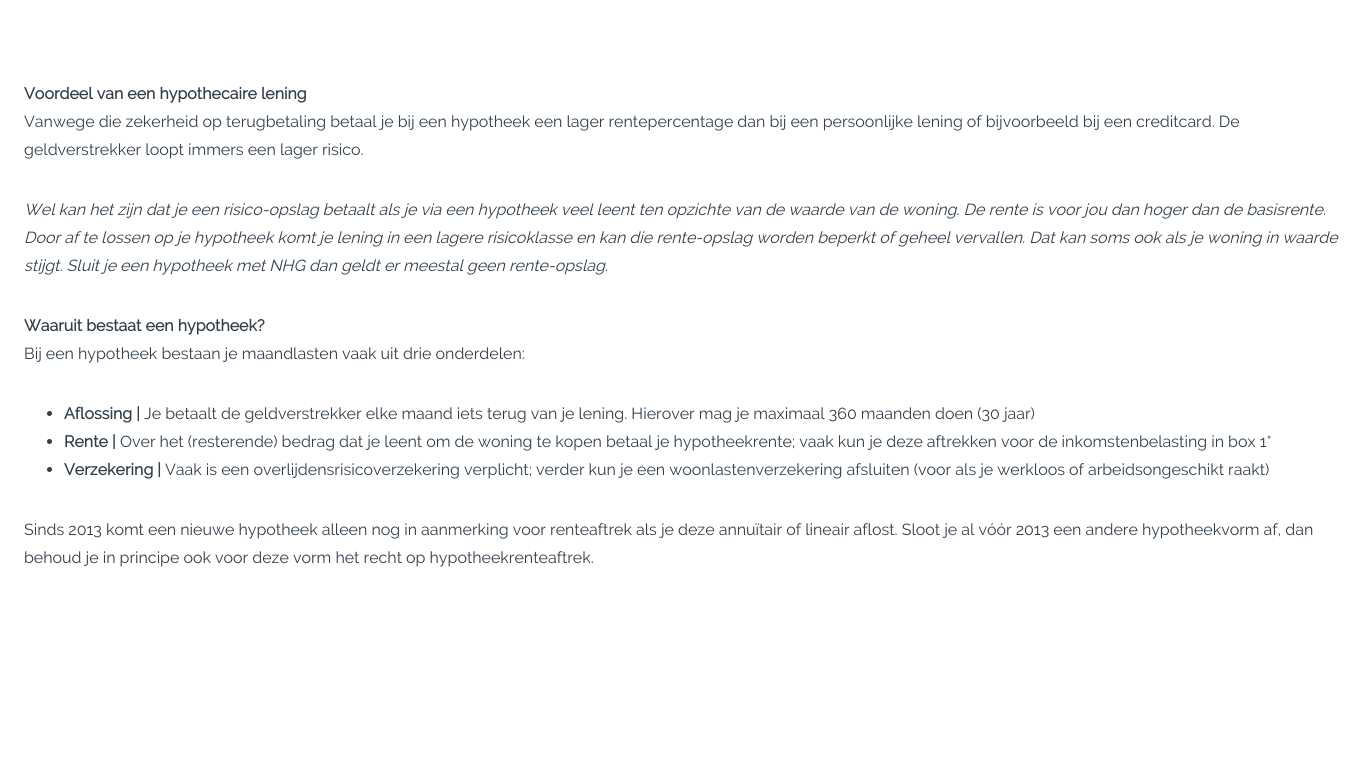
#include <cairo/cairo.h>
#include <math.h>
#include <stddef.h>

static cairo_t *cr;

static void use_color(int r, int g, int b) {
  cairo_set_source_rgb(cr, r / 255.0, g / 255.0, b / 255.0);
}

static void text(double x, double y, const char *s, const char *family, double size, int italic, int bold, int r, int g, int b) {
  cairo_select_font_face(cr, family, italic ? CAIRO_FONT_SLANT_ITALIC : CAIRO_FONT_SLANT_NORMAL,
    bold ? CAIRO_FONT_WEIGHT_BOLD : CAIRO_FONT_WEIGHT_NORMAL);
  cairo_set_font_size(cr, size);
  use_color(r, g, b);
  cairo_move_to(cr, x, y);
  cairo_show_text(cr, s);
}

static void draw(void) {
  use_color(255, 255, 255);
  cairo_paint(cr);
  use_color(50, 63, 75);
  cairo_arc(cr, 49.5, 413.5, 2.5, 0, 2 * M_PI);
  cairo_fill(cr);
  cairo_arc(cr, 49.5, 441.5, 2.5, 0, 2 * M_PI);
  cairo_fill(cr);
  cairo_arc(cr, 49.5, 469.5, 2.5, 0, 2 * M_PI);
  cairo_fill(cr);
  text(24, 99, "Voordeel van een hypothecaire lening", "Raleway", 16, 0, 1, 50, 63, 75);
  text(24, 127, "Vanwege die zekerheid op terugbetaling betaal je bij een hypotheek een lager rentepercentage dan bij een persoonlijke lening of bijvoorbeeld bij een creditcard. De", "Raleway", 16, 0, 0, 50, 63, 75);
  text(24, 155, "geldverstrekker loopt immers een lager risico.", "Raleway", 16, 0, 0, 50, 63, 75);
  text(24, 215, "Wel kan het zijn dat je een risico-opslag betaalt als je via een hypotheek veel leent ten opzichte van de waarde van de woning. De rente is voor jou dan hoger dan de basisrente.", "Raleway", 16, 1, 0, 50, 63, 75);
  text(24, 243, "Door af te lossen op je hypotheek komt je lening in een lagere risicoklasse en kan die rente-opslag worden beperkt of geheel vervallen. Dat kan soms ook als je woning in waarde", "Raleway", 16, 1, 0, 50, 63, 75);
  text(24, 271, "stijgt. Sluit je een hypotheek met NHG dan geldt er meestal geen rente-opslag.", "Raleway", 16, 1, 0, 50, 63, 75);
  text(24, 331, "Waaruit bestaat een hypotheek?", "Raleway", 16, 0, 1, 50, 63, 75);
  text(24, 359, "Bij een hypotheek bestaan je maandlasten vaak uit drie onderdelen:", "Raleway", 16, 0, 0, 50, 63, 75);
  text(64, 419, "Aflossing |", "Raleway", 16, 0, 1, 50, 63, 75);
  text(144, 419, "Je betaalt de geldverstrekker elke maand iets terug van je lening. Hierover mag je maximaal 360 maanden doen (30 jaar)", "Raleway", 16, 0, 0, 50, 63, 75);
  text(64, 447, "Rente |", "Raleway", 16, 0, 1, 50, 63, 75);
  text(120, 447, "Over het (resterende) bedrag dat je leent om de woning te kopen betaal je hypotheekrente; vaak kun je deze aftrekken voor de inkomstenbelasting in box 1*", "Raleway", 16, 0, 0, 50, 63, 75);
  text(64, 475, "Verzekering |", "Raleway", 16, 0, 1, 50, 63, 75);
  text(165, 475, "Vaak is een overlijdensrisicoverzekering verplicht; verder kun je een woonlastenverzekering afsluiten (voor als je werkloos of arbeidsongeschikt raakt)", "Raleway", 16, 0, 0, 50, 63, 75);
  text(24, 535, "Sinds 2013 komt een nieuwe hypotheek alleen nog in aanmerking voor renteaftrek als je deze annuïtair of lineair aflost. Sloot je al vóór 2013 een andere hypotheekvorm af, dan", "Raleway", 16, 0, 0, 50, 63, 75);
  text(24, 563, "behoud je in principe ook voor deze vorm het recht op hypotheekrenteaftrek.", "Raleway", 16, 0, 0, 50, 63, 75);
}

int main(void) {
  cairo_surface_t *surface = cairo_image_surface_create(CAIRO_FORMAT_RGB24, 1367, 758);
  cr = cairo_create(surface);
  cairo_font_options_t *options = cairo_font_options_create();
  cairo_font_options_set_hint_metrics(options, CAIRO_HINT_METRICS_OFF);
  cairo_font_options_set_hint_style(options, CAIRO_HINT_STYLE_NONE);
  cairo_set_font_options(cr, options);
  cairo_set_miter_limit(cr, 4);
  draw();
  cairo_surface_write_to_png(surface, "out.png");
  cairo_font_options_destroy(options);
  cairo_destroy(cr);
  cairo_surface_destroy(surface);
  return 0;
}
